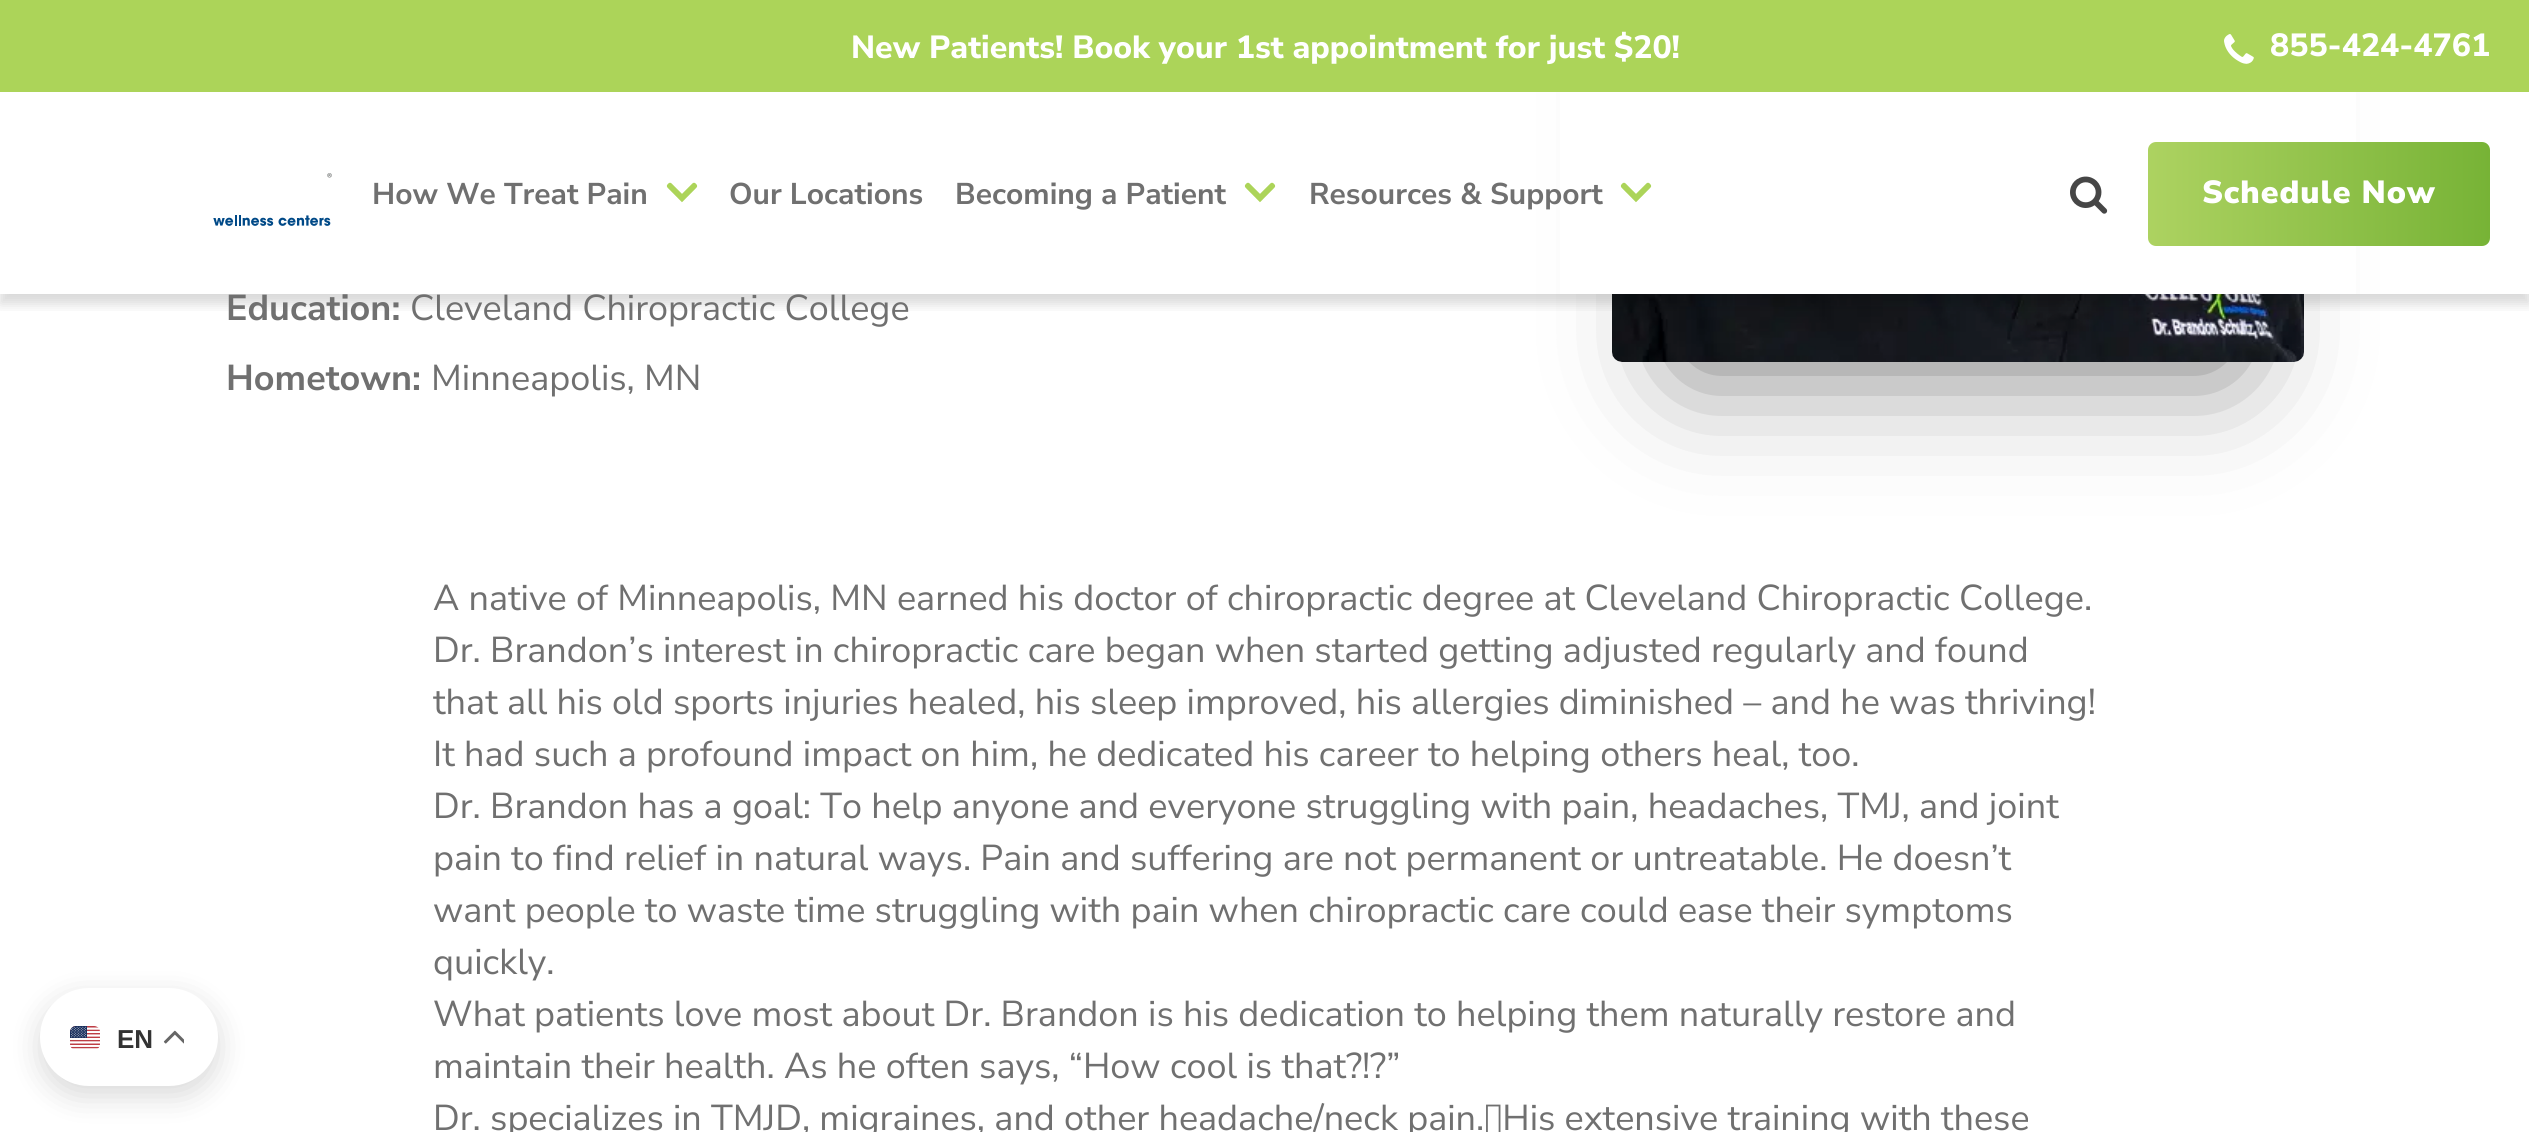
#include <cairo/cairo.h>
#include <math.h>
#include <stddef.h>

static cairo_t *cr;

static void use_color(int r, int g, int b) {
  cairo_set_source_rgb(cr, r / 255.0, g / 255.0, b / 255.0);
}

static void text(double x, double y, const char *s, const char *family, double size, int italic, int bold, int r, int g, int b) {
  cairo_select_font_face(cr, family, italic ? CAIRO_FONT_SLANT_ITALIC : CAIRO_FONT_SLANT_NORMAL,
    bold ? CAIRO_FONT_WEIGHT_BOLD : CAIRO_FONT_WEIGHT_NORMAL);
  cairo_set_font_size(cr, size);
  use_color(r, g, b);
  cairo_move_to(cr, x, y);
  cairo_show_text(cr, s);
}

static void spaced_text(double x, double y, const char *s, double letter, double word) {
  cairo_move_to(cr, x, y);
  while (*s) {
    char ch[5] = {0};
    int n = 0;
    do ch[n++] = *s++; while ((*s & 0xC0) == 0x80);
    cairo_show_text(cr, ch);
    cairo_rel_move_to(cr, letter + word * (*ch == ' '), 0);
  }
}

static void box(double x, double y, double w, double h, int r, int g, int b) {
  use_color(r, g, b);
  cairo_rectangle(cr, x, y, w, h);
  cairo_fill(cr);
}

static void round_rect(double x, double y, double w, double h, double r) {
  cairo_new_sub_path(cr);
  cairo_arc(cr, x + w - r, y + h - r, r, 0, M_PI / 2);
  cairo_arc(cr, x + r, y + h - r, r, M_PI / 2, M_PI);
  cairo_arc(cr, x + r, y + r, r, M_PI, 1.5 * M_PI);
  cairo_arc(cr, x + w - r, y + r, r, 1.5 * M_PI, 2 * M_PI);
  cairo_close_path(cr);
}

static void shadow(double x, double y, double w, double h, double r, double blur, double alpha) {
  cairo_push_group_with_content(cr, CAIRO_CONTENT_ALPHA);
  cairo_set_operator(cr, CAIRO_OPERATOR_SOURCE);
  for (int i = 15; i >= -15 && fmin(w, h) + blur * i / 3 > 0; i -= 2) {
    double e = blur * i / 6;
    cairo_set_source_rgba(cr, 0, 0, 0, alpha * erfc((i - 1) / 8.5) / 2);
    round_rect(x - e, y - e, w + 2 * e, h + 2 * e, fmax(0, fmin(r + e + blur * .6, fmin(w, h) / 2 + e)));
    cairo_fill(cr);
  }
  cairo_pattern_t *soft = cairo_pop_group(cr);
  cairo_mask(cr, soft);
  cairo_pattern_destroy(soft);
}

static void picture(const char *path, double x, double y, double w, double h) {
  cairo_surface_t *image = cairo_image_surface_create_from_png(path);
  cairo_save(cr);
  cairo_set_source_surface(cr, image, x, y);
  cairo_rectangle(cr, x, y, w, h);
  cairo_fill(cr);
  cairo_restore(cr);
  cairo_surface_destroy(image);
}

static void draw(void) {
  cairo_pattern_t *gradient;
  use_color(255, 255, 255);
  cairo_paint(cr);
  use_color(112, 112, 112);
  shadow(1686, -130, 544, 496, 0, 60, 1);
  box(1560, 92, 796, 202, 255, 255, 255);
  box(0, 0, 2529, 92, 172, 212, 89);
  picture("img_01.png", 2224, 34, 30, 30);
  picture("img_07.png", 1612, 294, 692, 68);
  cairo_save(cr);
  cairo_rectangle(cr, 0, 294, 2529, 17);
  cairo_clip(cr);
  use_color(0, 0, 0);
  shadow(0, 102, 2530, 202, 0, 6, 0.15);
  cairo_restore(cr);
  picture("img_02.png", 213, 173, 119, 53);
  picture("img_03.png", 666, 182, 32, 21);
  picture("img_03.png", 1244, 182, 32, 21);
  picture("img_03.png", 1620, 182, 32, 21);
  picture("img_04.png", 2070, 176, 38, 38);
  gradient = cairo_pattern_create_linear(2148, 194, 2490, 194);
  cairo_pattern_add_color_stop_rgba(gradient, 0, 0.678, 0.824, 0.38, 1);
  cairo_pattern_add_color_stop_rgba(gradient, 1, 0.467, 0.702, 0.212, 1);
  cairo_set_source(cr, gradient);
  cairo_pattern_destroy(gradient);
  round_rect(2148, 142, 342, 104, 8);
  cairo_fill(cr);
  use_color(0, 0, 0);
  shadow(40, 998, 178, 98, 49, 15, 0.15);
  use_color(255, 255, 255);
  round_rect(40, 988, 178, 98, 49);
  cairo_fill(cr);
  picture("img_05.png", 70, 1026, 30, 23);
  picture("img_06.png", 163, 1030, 21, 14);
  text(851, 58, "New Patients! Book your 1st appointment for just $20!", "Nunito Sans ExtraBold", 32, 0, 0, 255, 255, 255);
  text(2270, 56, "855-424-4761", "Nunito Sans ExtraBold", 32, 0, 0, 255, 255, 255);
  text(372, 204, "How We Treat Pain", "Nunito Sans", 30, 0, 1, 112, 112, 112);
  text(729, 204, "Our Locations", "Nunito Sans", 30, 0, 1, 112, 112, 112);
  text(955, 204, "Becoming a Patient", "Nunito Sans", 30, 0, 1, 112, 112, 112);
  text(1309, 204, "Resources & Support", "Nunito Sans", 30, 0, 1, 112, 112, 112);
  cairo_select_font_face(cr, "Nunito Sans Black", CAIRO_FONT_SLANT_NORMAL, CAIRO_FONT_WEIGHT_NORMAL);
  cairo_set_font_size(cr, 32);
  use_color(255, 255, 255);
  spaced_text(2202, 203, "Schedule Now", 1, 0);
  text(117, 1048, "EN", "Liberation Sans", 26, 0, 1, 51, 51, 51);
  text(226, 320, "Education:", "Nunito Sans", 36, 0, 1, 112, 112, 112);
  text(410, 320, "Cleveland Chiropractic College", "Nunito Sans", 36, 0, 0, 112, 112, 112);
  text(226, 390, "Hometown:", "Nunito Sans", 36, 0, 1, 112, 112, 112);
  text(431, 390, "Minneapolis, MN", "Nunito Sans", 36, 0, 0, 112, 112, 112);
  text(433, 610, "A native of Minneapolis, MN earned his doctor of chiropractic degree at Cleveland Chiropractic College.", "Nunito Sans", 36, 0, 0, 112, 112, 112);
  text(433, 662, "Dr. Brandon’s interest in chiropractic care began when started getting adjusted regularly and found", "Nunito Sans", 36, 0, 0, 112, 112, 112);
  text(433, 714, "that all his old sports injuries healed, his sleep improved, his allergies diminished – and he was thriving!", "Nunito Sans", 36, 0, 0, 112, 112, 112);
  text(433, 766, "It had such a profound impact on him, he dedicated his career to helping others heal, too.", "Nunito Sans", 36, 0, 0, 112, 112, 112);
  text(433, 818, "Dr. Brandon has a goal: To help anyone and everyone struggling with pain, headaches, TMJ, and joint", "Nunito Sans", 36, 0, 0, 112, 112, 112);
  text(433, 870, "pain to find relief in natural ways. Pain and suffering are not permanent or untreatable. He doesn’t", "Nunito Sans", 36, 0, 0, 112, 112, 112);
  text(433, 922, "want people to waste time struggling with pain when chiropractic care could ease their symptoms", "Nunito Sans", 36, 0, 0, 112, 112, 112);
  text(433, 974, "quickly.", "Nunito Sans", 36, 0, 0, 112, 112, 112);
  text(433, 1026, "What patients love most about Dr. Brandon is his dedication to helping them naturally restore and", "Nunito Sans", 36, 0, 0, 112, 112, 112);
  text(433, 1078, "maintain their health. As he often says, “How cool is that?!?”", "Nunito Sans", 36, 0, 0, 112, 112, 112);
  text(433, 1130, "Dr. specializes in TMJD, migraines, and other headache/neck pain. His extensive training with these", "Nunito Sans", 36, 0, 0, 112, 112, 112);
}

int main(void) {
  cairo_surface_t *surface = cairo_image_surface_create(CAIRO_FORMAT_RGB24, 2529, 1132);
  cr = cairo_create(surface);
  cairo_font_options_t *options = cairo_font_options_create();
  cairo_font_options_set_hint_metrics(options, CAIRO_HINT_METRICS_OFF);
  cairo_font_options_set_hint_style(options, CAIRO_HINT_STYLE_NONE);
  cairo_set_font_options(cr, options);
  cairo_set_miter_limit(cr, 4);
  draw();
  cairo_surface_write_to_png(surface, "out.png");
  cairo_font_options_destroy(options);
  cairo_destroy(cr);
  cairo_surface_destroy(surface);
  return 0;
}
